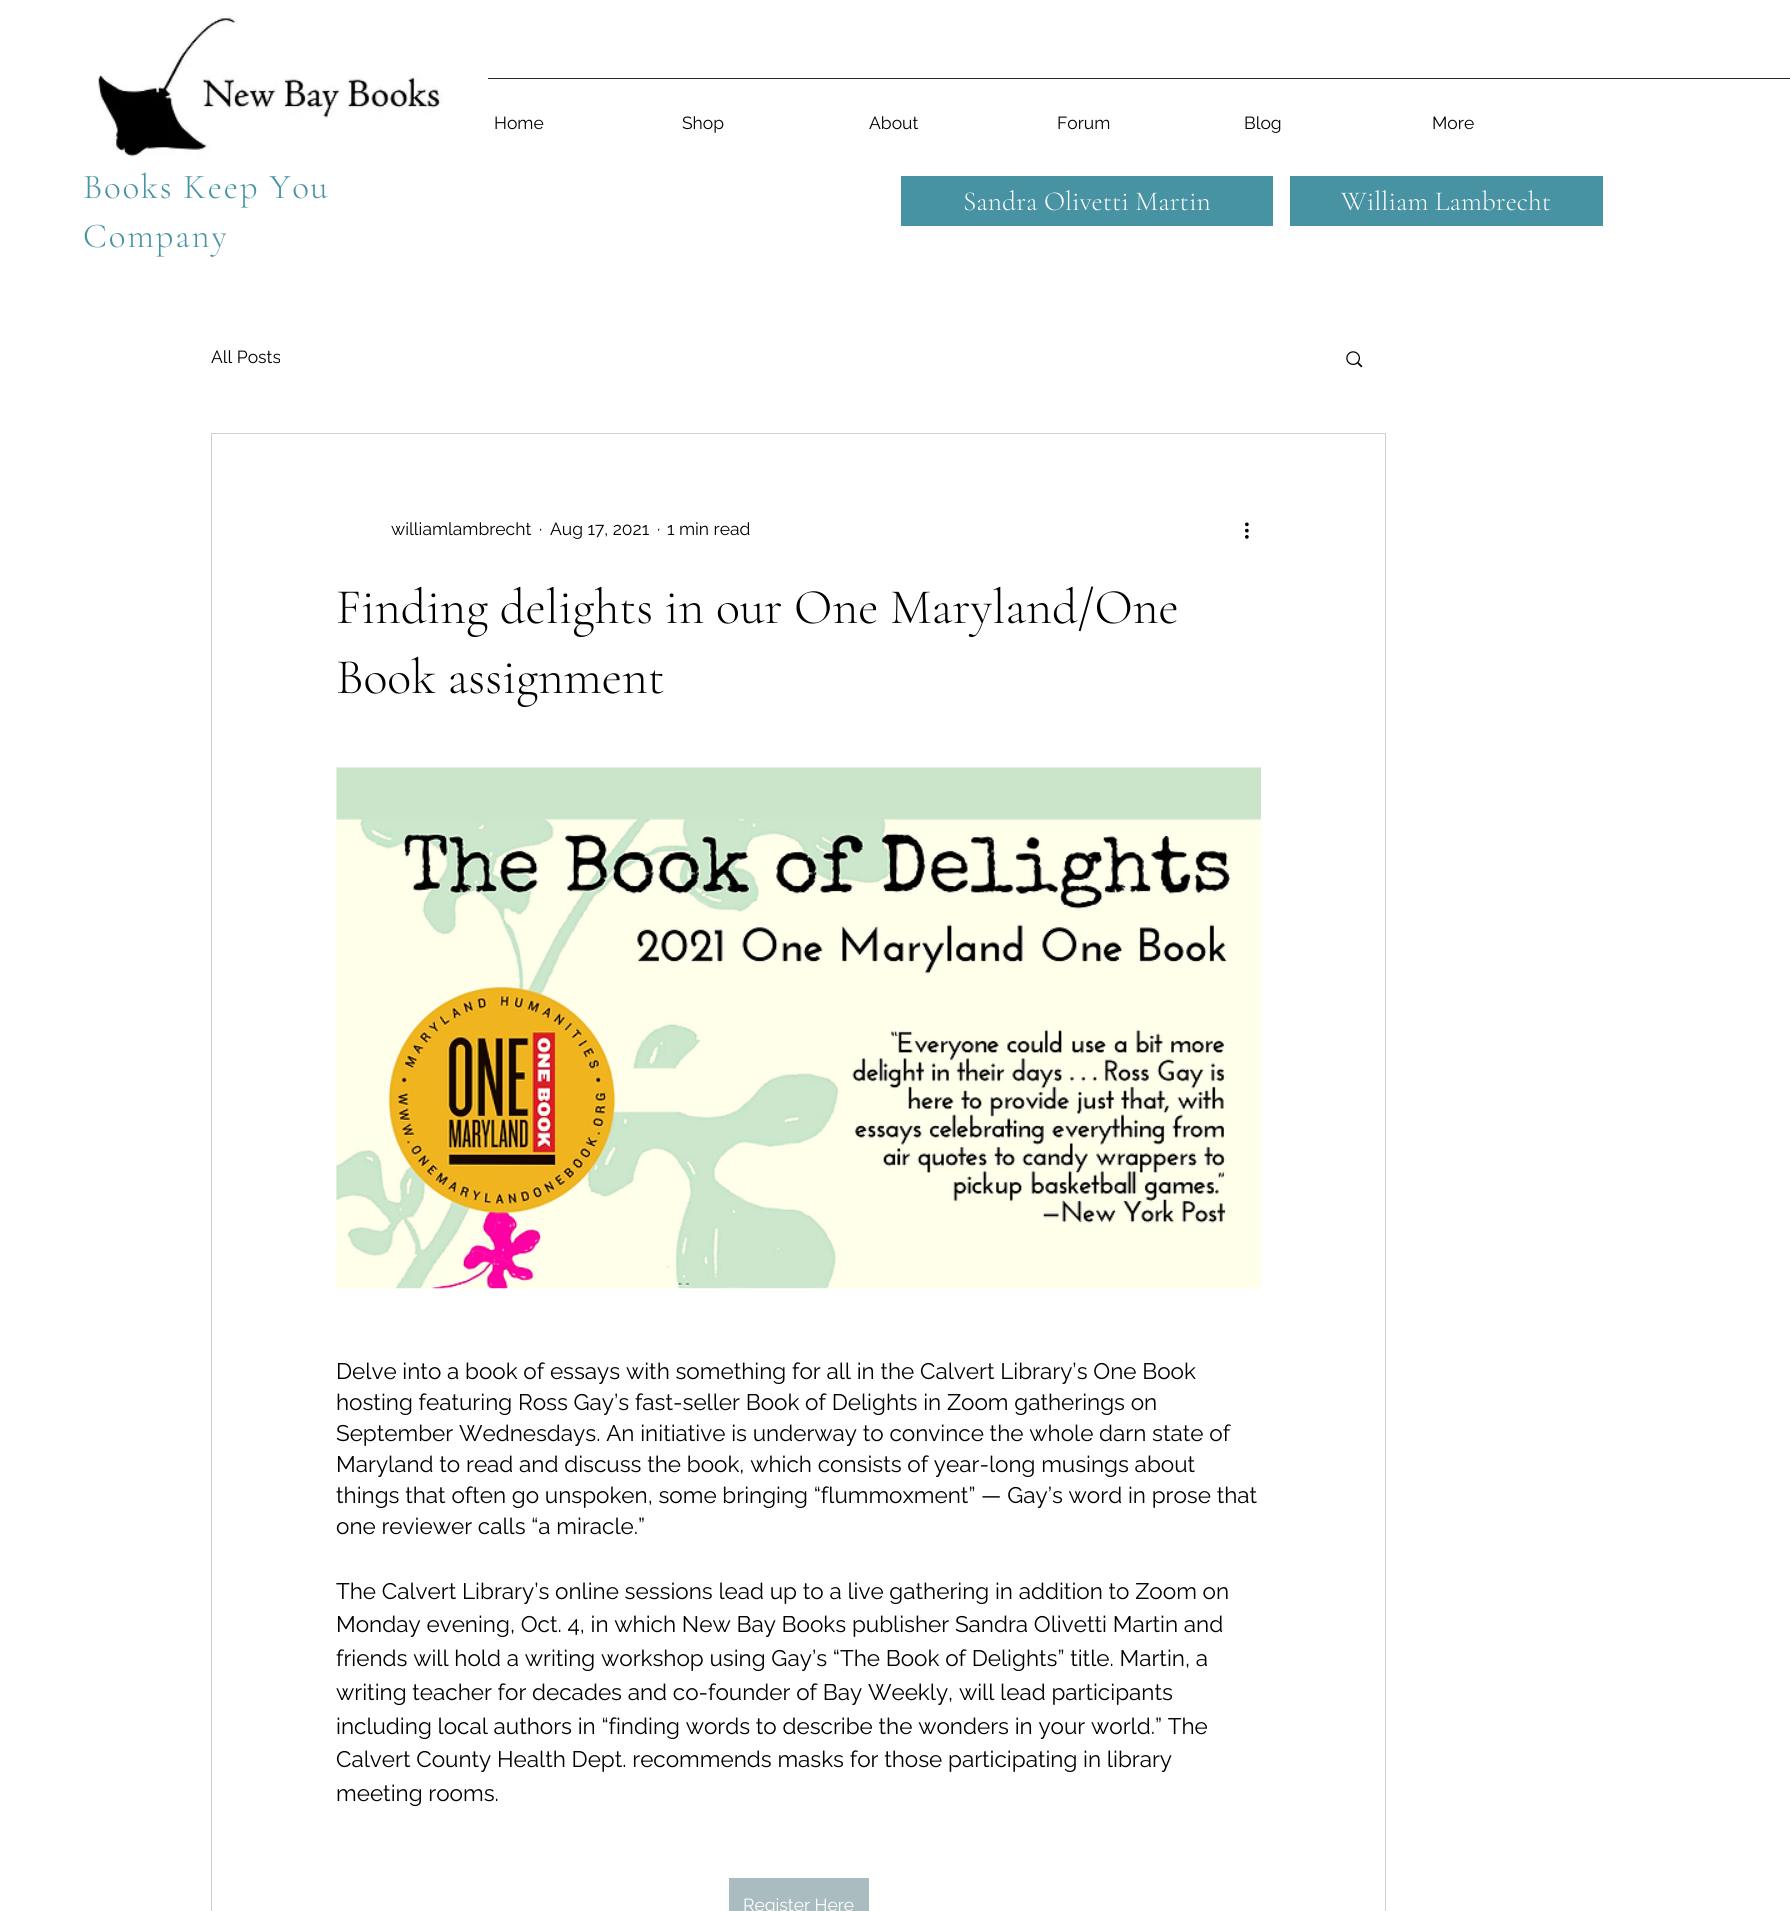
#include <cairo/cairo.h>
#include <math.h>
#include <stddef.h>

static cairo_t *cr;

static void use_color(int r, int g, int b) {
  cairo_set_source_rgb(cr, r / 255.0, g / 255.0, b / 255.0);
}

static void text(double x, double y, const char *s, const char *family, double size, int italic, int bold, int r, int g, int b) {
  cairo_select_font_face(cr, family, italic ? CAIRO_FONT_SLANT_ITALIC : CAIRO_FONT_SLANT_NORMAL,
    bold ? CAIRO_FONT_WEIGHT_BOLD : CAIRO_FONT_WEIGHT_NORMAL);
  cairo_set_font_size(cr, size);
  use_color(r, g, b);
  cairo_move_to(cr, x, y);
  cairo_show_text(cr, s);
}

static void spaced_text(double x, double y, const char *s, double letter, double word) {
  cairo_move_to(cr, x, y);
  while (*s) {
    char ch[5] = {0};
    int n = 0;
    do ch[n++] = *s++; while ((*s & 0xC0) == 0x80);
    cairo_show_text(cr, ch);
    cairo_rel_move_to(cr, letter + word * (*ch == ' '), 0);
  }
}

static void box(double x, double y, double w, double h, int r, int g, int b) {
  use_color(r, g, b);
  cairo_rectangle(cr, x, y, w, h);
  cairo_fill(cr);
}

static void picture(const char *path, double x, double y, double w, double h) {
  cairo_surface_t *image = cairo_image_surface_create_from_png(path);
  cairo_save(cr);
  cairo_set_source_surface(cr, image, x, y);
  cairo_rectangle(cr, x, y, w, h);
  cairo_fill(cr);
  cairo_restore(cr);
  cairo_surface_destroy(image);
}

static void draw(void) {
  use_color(255, 255, 255);
  cairo_paint(cr);
  box(488, 78, 1302, 1, 38, 38, 38);
  picture("img_01.png", 98, 16, 345, 141);
  box(901, 176, 372, 50, 71, 147, 163);
  box(1290, 176, 313, 50, 71, 147, 163);
  picture("img_02.png", 1346, 351, 17, 17);
  cairo_rectangle(cr, 211.5, 433.5, 1174, 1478);
  use_color(207, 207, 207);
  cairo_set_line_width(cr, 1);
  cairo_stroke(cr);
  picture("img_03.png", 1245, 522, 4, 17);
  picture("img_04.png", 336, 767, 925, 522);
  box(729, 1878, 140, 33, 170, 188, 191);
  cairo_select_font_face(cr, "Cormorant Garamond Light", CAIRO_FONT_SLANT_NORMAL, CAIRO_FONT_WEIGHT_NORMAL);
  cairo_set_font_size(cr, 35);
  use_color(71, 147, 163);
  spaced_text(83, 198, "Books Keep You", 1.75, 0);
  spaced_text(83, 247, "Company", 1.75, 0);
  text(494, 129, "Home", "Raleway", 17.5, 0, 0, 0, 0, 0);
  text(682, 129, "Shop", "Raleway", 17.5, 0, 0, 0, 0, 0);
  text(869, 129, "About", "Raleway", 17.5, 0, 0, 0, 0, 0);
  text(1057, 129, "Forum", "Raleway", 17.5, 0, 0, 0, 0, 0);
  text(1244, 129, "Blog", "Raleway", 17.5, 0, 0, 0, 0, 0);
  text(1432, 129, "More", "Raleway", 17.5, 0, 0, 0, 0, 0);
  text(963, 210, "Sandra Olivetti Martin", "Cormorant Garamond Light", 27.5, 0, 0, 255, 255, 255);
  text(1341, 210, "William Lambrecht", "Cormorant Garamond Light", 27.5, 0, 0, 255, 255, 255);
  text(211, 363, "All Posts", "Raleway", 17.5, 0, 0, 0, 0, 0);
  text(391, 535, "williamlambrecht", "Raleway", 17.5, 0, 0, 0, 0, 0);
  text(539, 535, "·", "Raleway", 17.5, 0, 0, 0, 0, 0);
  text(550, 535, "Aug 17, 2021", "Raleway", 17.5, 0, 0, 0, 0, 0);
  text(657, 535, "·", "Raleway", 17.5, 0, 0, 0, 0, 0);
  text(667, 535, "1 min read", "Raleway", 17.5, 0, 0, 0, 0, 0);
  text(336, 623, "Finding delights in our One Maryland/One", "Cormorant Garamond Light", 50, 0, 0, 0, 0, 0);
  text(336, 693, "Book assignment", "Cormorant Garamond Light", 50, 0, 0, 0, 0, 0);
  text(336, 1379, "Delve into a book of essays with something for all in the Calvert Library’s One Book", "Raleway", 22.5, 0, 0, 0, 0, 0);
  text(336, 1410, "hosting featuring Ross Gay’s fast-seller Book of Delights in Zoom gatherings on", "Raleway", 22.5, 0, 0, 0, 0, 0);
  text(336, 1441, "September Wednesdays. An initiative is underway to convince the whole darn state of", "Raleway", 22.5, 0, 0, 0, 0, 0);
  text(336, 1472, "Maryland to read and discuss the book, which consists of year-long musings about", "Raleway", 22.5, 0, 0, 0, 0, 0);
  text(336, 1503, "things that often go unspoken, some bringing “flummoxment” — Gay’s word in prose that", "Raleway", 22.5, 0, 0, 0, 0, 0);
  text(336, 1534, "one reviewer calls “a miracle.”", "Raleway", 22.5, 0, 0, 0, 0, 0);
  text(336, 1599, "The Calvert Library’s online sessions lead up to a live gathering in addition to Zoom on", "Raleway", 22.5, 0, 0, 0, 0, 0);
  text(336, 1632, "Monday evening, Oct. 4, in which New Bay Books publisher Sandra Olivetti Martin and", "Raleway", 22.5, 0, 0, 0, 0, 0);
  text(336, 1666, "friends will hold a writing workshop using Gay’s “The Book of Delights” title. Martin, a", "Raleway", 22.5, 0, 0, 0, 0, 0);
  text(336, 1700, "writing teacher for decades and co-founder of Bay Weekly, will lead participants", "Raleway", 22.5, 0, 0, 0, 0, 0);
  text(336, 1734, "including local authors in “finding words to describe the wonders in your world.” The", "Raleway", 22.5, 0, 0, 0, 0, 0);
  text(336, 1767, "Calvert County Health Dept. recommends masks for those participating in library", "Raleway", 22.5, 0, 0, 0, 0, 0);
  text(336, 1801, "meeting rooms.", "Raleway", 22.5, 0, 0, 0, 0, 0);
  text(743, 1911, "Register Here", "Raleway", 17.5, 0, 0, 255, 255, 255);
}

int main(void) {
  cairo_surface_t *surface = cairo_image_surface_create(CAIRO_FORMAT_RGB24, 1790, 1911);
  cr = cairo_create(surface);
  cairo_font_options_t *options = cairo_font_options_create();
  cairo_font_options_set_hint_metrics(options, CAIRO_HINT_METRICS_OFF);
  cairo_font_options_set_hint_style(options, CAIRO_HINT_STYLE_NONE);
  cairo_set_font_options(cr, options);
  cairo_set_miter_limit(cr, 4);
  draw();
  cairo_surface_write_to_png(surface, "out.png");
  cairo_font_options_destroy(options);
  cairo_destroy(cr);
  cairo_surface_destroy(surface);
  return 0;
}
